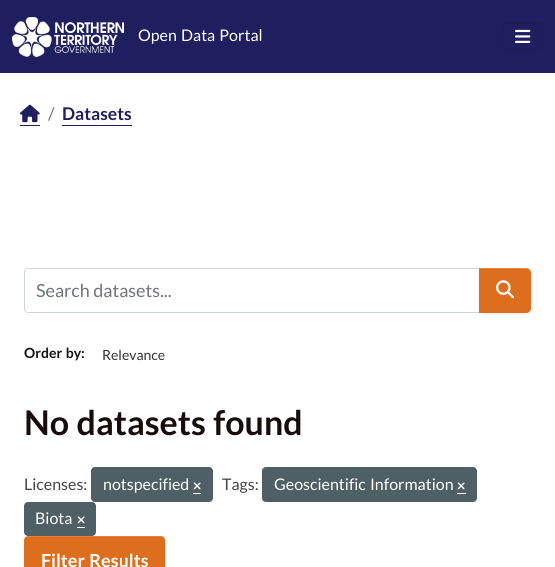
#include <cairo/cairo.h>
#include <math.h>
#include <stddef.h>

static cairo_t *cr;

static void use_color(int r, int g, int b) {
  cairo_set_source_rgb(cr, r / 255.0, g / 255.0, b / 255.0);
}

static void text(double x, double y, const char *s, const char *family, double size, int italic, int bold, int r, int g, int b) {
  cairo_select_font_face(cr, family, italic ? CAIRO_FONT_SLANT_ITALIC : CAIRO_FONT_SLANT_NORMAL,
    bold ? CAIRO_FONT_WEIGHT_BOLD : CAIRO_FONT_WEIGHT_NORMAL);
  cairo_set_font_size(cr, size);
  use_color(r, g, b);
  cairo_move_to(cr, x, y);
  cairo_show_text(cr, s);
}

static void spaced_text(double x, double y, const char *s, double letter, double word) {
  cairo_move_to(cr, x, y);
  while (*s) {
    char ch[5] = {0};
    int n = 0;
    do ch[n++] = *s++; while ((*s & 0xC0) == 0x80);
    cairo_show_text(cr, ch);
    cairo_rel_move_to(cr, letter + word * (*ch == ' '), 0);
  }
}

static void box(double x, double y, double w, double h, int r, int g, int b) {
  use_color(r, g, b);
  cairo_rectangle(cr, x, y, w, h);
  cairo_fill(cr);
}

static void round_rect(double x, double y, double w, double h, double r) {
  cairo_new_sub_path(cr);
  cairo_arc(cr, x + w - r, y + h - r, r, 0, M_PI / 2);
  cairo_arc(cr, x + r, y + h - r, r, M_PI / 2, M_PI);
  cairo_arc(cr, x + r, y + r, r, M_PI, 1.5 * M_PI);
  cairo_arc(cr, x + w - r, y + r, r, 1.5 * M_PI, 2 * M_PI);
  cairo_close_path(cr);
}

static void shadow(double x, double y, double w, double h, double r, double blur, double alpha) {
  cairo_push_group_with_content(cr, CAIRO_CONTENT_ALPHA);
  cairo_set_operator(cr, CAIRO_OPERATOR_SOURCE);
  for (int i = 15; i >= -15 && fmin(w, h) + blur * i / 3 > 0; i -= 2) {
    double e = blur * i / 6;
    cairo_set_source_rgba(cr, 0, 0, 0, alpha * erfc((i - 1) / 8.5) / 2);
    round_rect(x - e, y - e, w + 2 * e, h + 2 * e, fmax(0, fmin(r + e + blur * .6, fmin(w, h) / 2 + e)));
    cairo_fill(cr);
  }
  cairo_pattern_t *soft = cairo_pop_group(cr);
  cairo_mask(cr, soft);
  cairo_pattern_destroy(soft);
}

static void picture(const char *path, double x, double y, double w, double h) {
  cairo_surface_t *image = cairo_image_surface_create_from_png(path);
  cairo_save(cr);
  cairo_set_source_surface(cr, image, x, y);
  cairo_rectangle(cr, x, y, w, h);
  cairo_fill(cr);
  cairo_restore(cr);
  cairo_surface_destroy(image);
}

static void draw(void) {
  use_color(255, 255, 255);
  cairo_paint(cr);
  box(0, 0, 555, 73, 31, 31, 95);
  picture("img_01.png", 12, 17, 112, 40);
  round_rect(502.5, 23.5, 40, 26, 3.5);
  use_color(28, 28, 86);
  cairo_set_line_width(cr, 1);
  cairo_stroke(cr);
  picture("img_02.png", 515, 29, 16, 14);
  box(20, 125, 20, 1, 31, 31, 95);
  picture("img_03.png", 20, 104, 20, 19);
  box(62, 125, 70, 1, 31, 31, 95);
  cairo_new_path(cr);
  cairo_move_to(cr, 28, 268.5);
  cairo_line_to(cr, 479.5, 268.5);
  cairo_line_to(cr, 479.5, 312.5);
  cairo_line_to(cr, 28, 312.5);
  cairo_curve_to(cr, 26, 312.5, 24.5, 311, 24.5, 309);
  cairo_line_to(cr, 24.5, 272);
  cairo_curve_to(cr, 24.5, 270, 26, 268.5, 28, 268.5);
  cairo_close_path(cr);
  use_color(206, 212, 218);
  cairo_stroke(cr);
  use_color(0, 0, 0);
  shadow(479, 269, 52, 45, 5, 0.5, 0.07);
  use_color(221, 110, 29);
  cairo_new_path(cr);
  cairo_move_to(cr, 479, 268);
  cairo_line_to(cr, 526, 268);
  cairo_curve_to(cr, 529, 268, 531, 270, 531, 273);
  cairo_line_to(cr, 531, 308);
  cairo_curve_to(cr, 531, 311, 529, 313, 526, 313);
  cairo_line_to(cr, 479, 313);
  cairo_close_path(cr);
  cairo_fill(cr);
  cairo_set_source_rgba(cr, 1, 1, 1, 0.15);
  cairo_new_path(cr);
  cairo_move_to(cr, 479, 269);
  cairo_line_to(cr, 526, 269);
  cairo_curve_to(cr, 529, 269, 531, 271, 531, 274);
  cairo_line_to(cr, 531, 273);
  cairo_curve_to(cr, 531, 270, 529, 268, 526, 268);
  cairo_line_to(cr, 479, 268);
  cairo_close_path(cr);
  cairo_fill(cr);
  picture("img_04.png", 496, 280, 18, 19);
  use_color(78, 95, 101);
  round_rect(91, 467, 122, 35, 4);
  cairo_fill(cr);
  box(193, 493, 8, 1, 255, 255, 255);
  picture("img_05.png", 193, 482, 8, 8);
  use_color(78, 95, 101);
  round_rect(262, 467, 215, 35, 4);
  cairo_fill(cr);
  box(457, 493, 9, 1, 255, 255, 255);
  picture("img_05.png", 457, 482, 8, 8);
  use_color(78, 95, 101);
  round_rect(24, 502, 72, 34, 4);
  cairo_fill(cr);
  box(77, 527, 8, 1, 255, 255, 255);
  picture("img_05.png", 77, 516, 8, 8);
  use_color(221, 110, 29);
  round_rect(24, 536, 141, 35, 4);
  cairo_fill(cr);
  cairo_set_source_rgba(cr, 1, 1, 1, 0.15);
  cairo_new_path(cr);
  cairo_move_to(cr, 28, 537);
  cairo_line_to(cr, 161, 537);
  cairo_curve_to(cr, 163, 537, 165, 539, 165, 541);
  cairo_line_to(cr, 165, 540);
  cairo_curve_to(cr, 165, 538, 163, 536, 161, 536);
  cairo_line_to(cr, 28, 536);
  cairo_curve_to(cr, 26, 536, 24, 538, 24, 540);
  cairo_line_to(cr, 24, 541);
  cairo_curve_to(cr, 24, 539, 26, 537, 28, 537);
  cairo_close_path(cr);
  cairo_fill(cr);
  cairo_select_font_face(cr, "Lato", CAIRO_FONT_SLANT_NORMAL, CAIRO_FONT_WEIGHT_NORMAL);
  cairo_set_font_size(cr, 16);
  use_color(255, 255, 255);
  spaced_text(138, 41, "Open Data Portal", 0, 1);
  text(48, 120, "/", "Lato", 17.5, 0, 0, 108, 117, 125);
  text(62, 120, "Datasets", "Lato", 17.5, 0, 1, 31, 31, 95);
  text(36, 297, "Search datasets...", "Lato", 18, 0, 0, 108, 117, 125);
  cairo_select_font_face(cr, "Lato", CAIRO_FONT_SLANT_NORMAL, CAIRO_FONT_WEIGHT_BOLD);
  cairo_set_font_size(cr, 14);
  use_color(20, 20, 20);
  spaced_text(24, 358, "Order by", 0, 1);
  text(81, 358, ":", "Lato", 14, 0, 1, 20, 20, 20);
  text(102, 360, "Relevance", "Lato", 14, 0, 0, 51, 51, 51);
  cairo_select_font_face(cr, "Lato", CAIRO_FONT_SLANT_NORMAL, CAIRO_FONT_WEIGHT_BOLD);
  cairo_set_font_size(cr, 34);
  use_color(24, 13, 10);
  spaced_text(24, 435, "No datasets found", 0, 1);
  text(24, 490, "Licenses:", "Lato", 16, 0, 0, 68, 68, 68);
  text(103, 490, "notspecified", "Lato", 16, 0, 0, 255, 255, 255);
  text(222, 490, "Tags:", "Lato", 16, 0, 0, 68, 68, 68);
  use_color(255, 255, 255);
  spaced_text(274, 490, "Geoscientific Information", 0, 1);
  text(35, 524, "Biota", "Lato", 16, 0, 0, 255, 255, 255);
  cairo_select_font_face(cr, "Lato", CAIRO_FONT_SLANT_NORMAL, CAIRO_FONT_WEIGHT_BOLD);
  cairo_set_font_size(cr, 18);
  spaced_text(41, 567, "Filter Results", 0, 1);
}

int main(void) {
  cairo_surface_t *surface = cairo_image_surface_create(CAIRO_FORMAT_RGB24, 555, 567);
  cr = cairo_create(surface);
  cairo_font_options_t *options = cairo_font_options_create();
  cairo_font_options_set_hint_metrics(options, CAIRO_HINT_METRICS_OFF);
  cairo_font_options_set_hint_style(options, CAIRO_HINT_STYLE_NONE);
  cairo_set_font_options(cr, options);
  cairo_set_miter_limit(cr, 4);
  draw();
  cairo_surface_write_to_png(surface, "out.png");
  cairo_font_options_destroy(options);
  cairo_destroy(cr);
  cairo_surface_destroy(surface);
  return 0;
}
